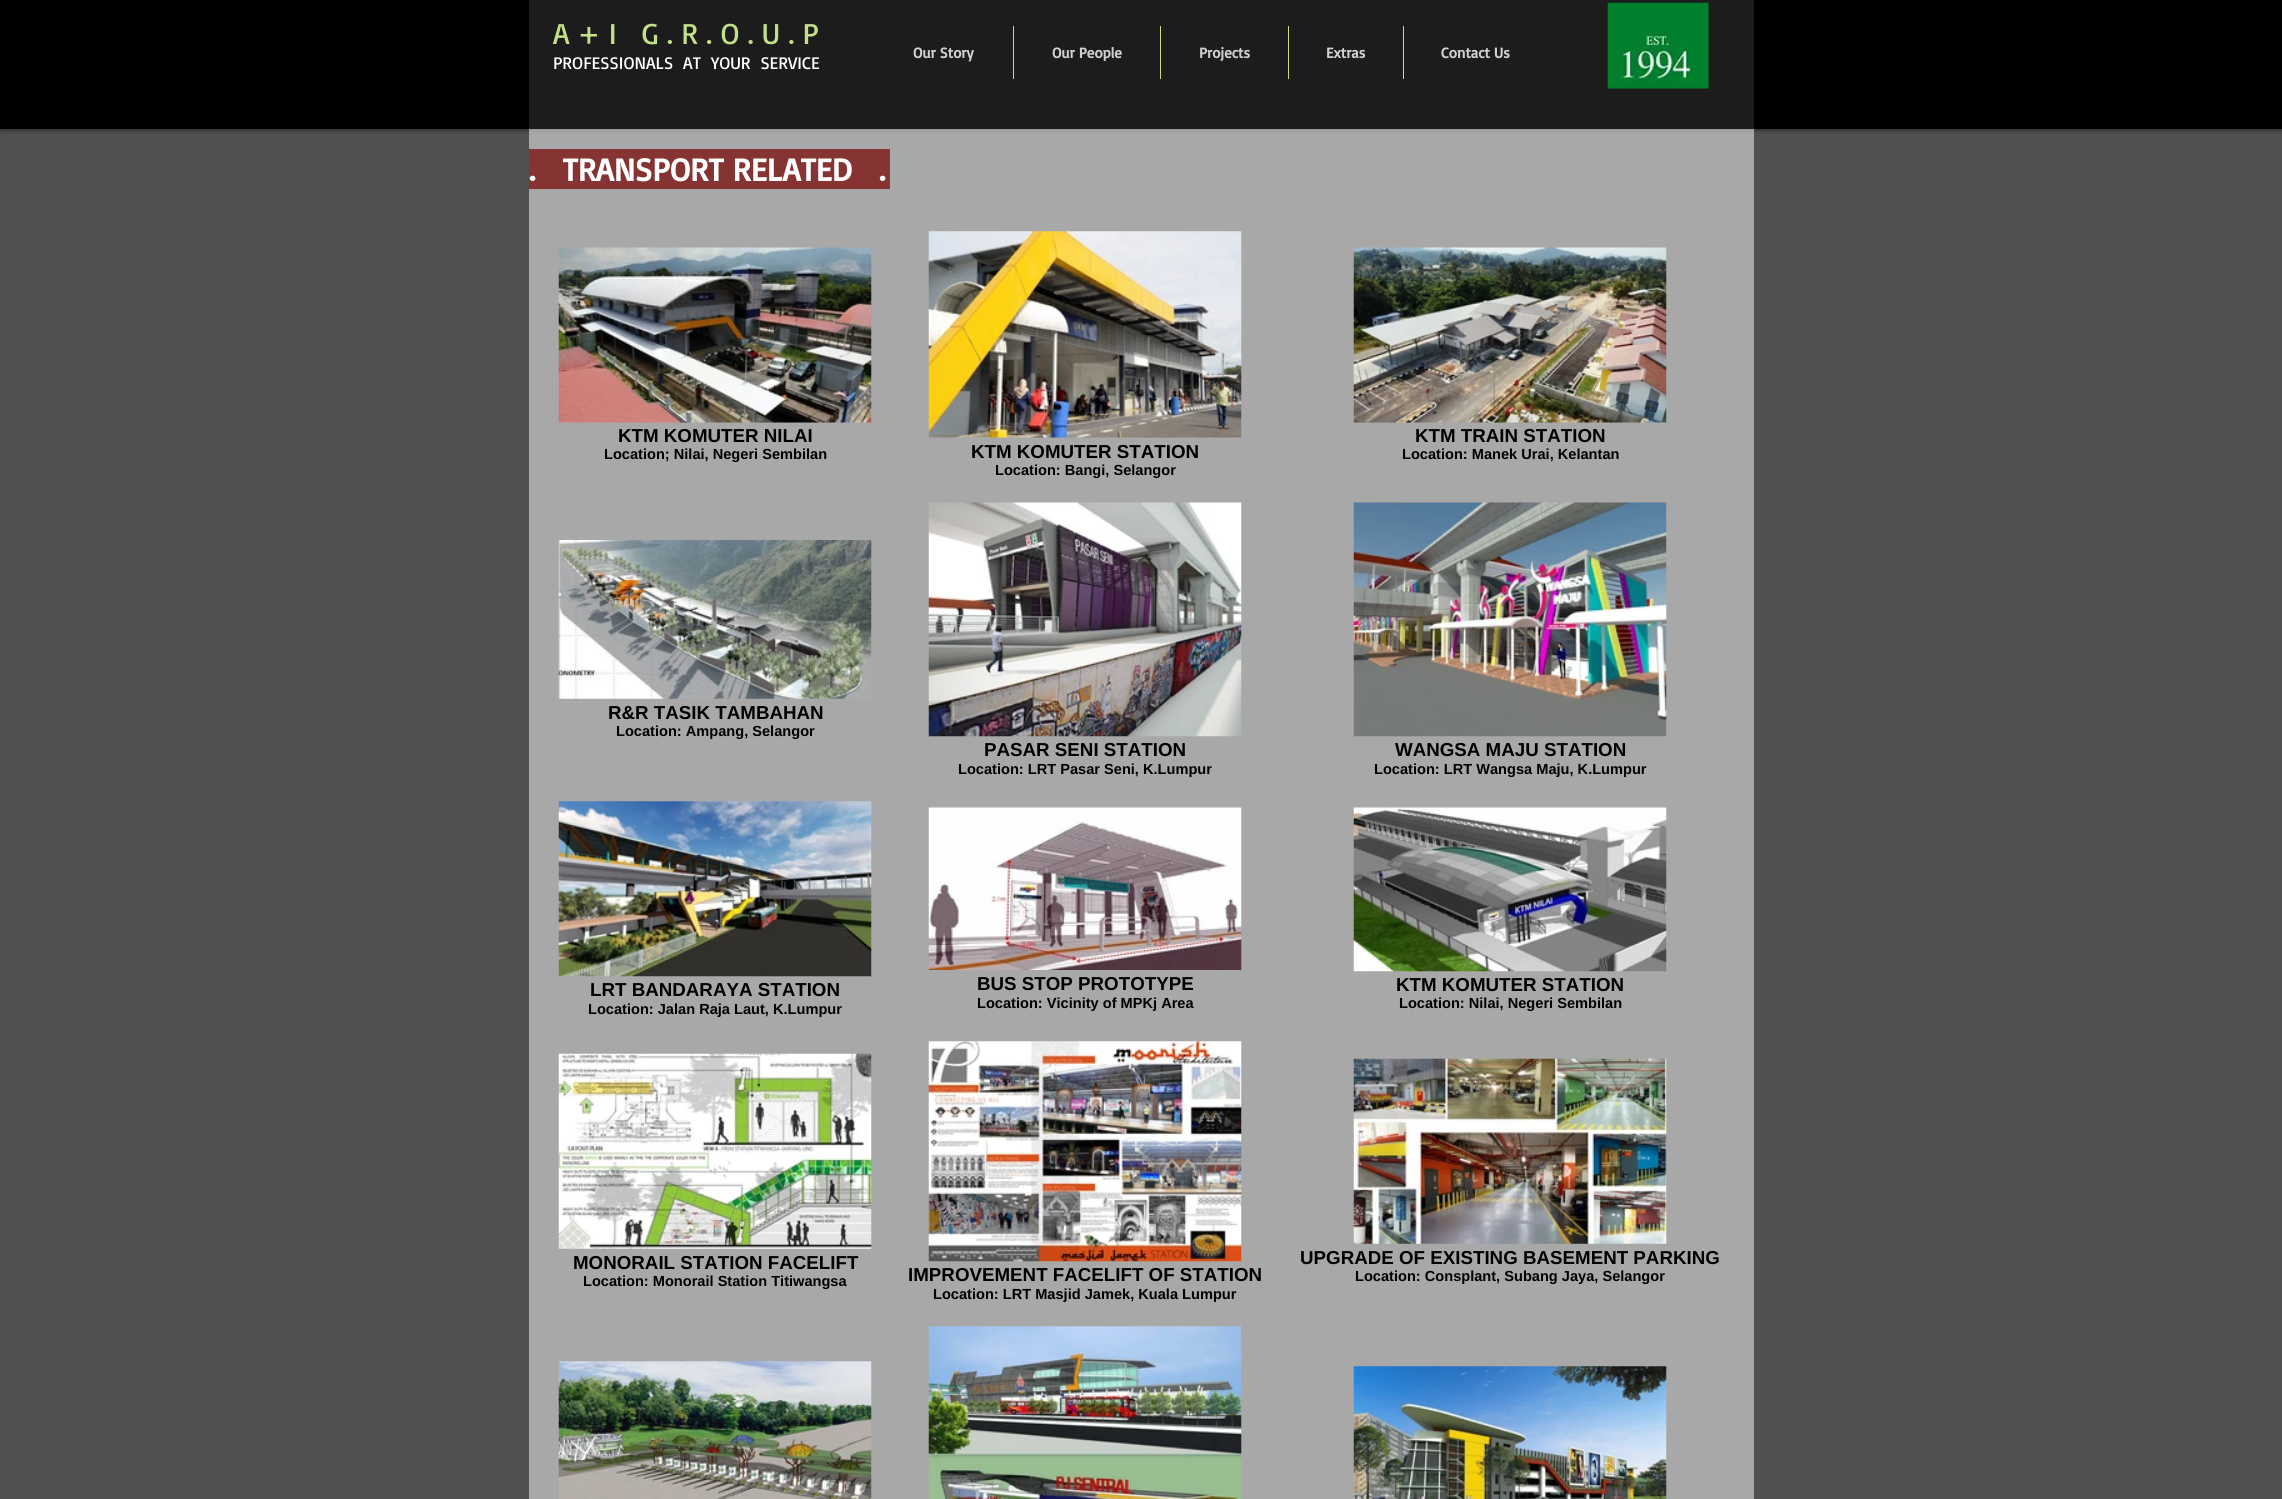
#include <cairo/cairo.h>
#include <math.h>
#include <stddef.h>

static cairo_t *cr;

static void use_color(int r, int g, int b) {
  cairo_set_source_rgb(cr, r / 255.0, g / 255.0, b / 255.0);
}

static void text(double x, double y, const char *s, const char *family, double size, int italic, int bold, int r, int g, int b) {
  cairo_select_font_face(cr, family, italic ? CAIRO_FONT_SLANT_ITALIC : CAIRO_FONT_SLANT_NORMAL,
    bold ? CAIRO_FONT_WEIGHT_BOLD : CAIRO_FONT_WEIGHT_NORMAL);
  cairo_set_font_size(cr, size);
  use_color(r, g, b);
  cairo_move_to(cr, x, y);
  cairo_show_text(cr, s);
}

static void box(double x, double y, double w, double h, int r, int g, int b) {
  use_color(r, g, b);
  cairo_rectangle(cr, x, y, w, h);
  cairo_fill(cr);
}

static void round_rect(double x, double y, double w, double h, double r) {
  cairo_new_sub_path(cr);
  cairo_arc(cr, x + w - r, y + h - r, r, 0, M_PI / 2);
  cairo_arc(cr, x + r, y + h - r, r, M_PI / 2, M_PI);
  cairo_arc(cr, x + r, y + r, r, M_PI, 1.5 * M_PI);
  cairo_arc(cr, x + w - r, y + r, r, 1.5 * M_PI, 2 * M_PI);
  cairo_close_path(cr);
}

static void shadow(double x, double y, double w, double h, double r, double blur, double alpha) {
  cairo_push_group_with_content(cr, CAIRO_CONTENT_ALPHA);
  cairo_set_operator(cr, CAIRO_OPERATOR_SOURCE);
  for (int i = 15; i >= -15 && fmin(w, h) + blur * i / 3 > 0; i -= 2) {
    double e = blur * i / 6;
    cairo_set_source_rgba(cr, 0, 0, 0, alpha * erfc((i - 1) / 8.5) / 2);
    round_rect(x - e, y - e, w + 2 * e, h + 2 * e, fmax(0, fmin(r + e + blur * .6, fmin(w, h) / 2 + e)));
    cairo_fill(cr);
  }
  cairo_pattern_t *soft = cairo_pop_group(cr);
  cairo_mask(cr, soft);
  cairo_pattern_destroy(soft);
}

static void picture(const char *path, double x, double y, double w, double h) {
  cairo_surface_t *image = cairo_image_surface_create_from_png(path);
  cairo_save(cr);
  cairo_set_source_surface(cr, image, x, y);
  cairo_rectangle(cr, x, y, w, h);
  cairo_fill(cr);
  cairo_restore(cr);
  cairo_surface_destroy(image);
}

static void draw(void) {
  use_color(81, 81, 81);
  cairo_paint(cr);
  use_color(0, 0, 0);
  shadow(0, 0, 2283, 129, 0, 3, 0.7);
  box(0, 0, 2282, 129, 0, 0, 0);
  box(529, 0, 1225, 129, 28, 28, 28);
  box(1013, 26, 1, 53, 193, 224, 136);
  box(1160, 26, 1, 53, 193, 224, 136);
  box(1288, 26, 1, 53, 193, 224, 136);
  box(1403, 26, 1, 53, 193, 224, 136);
  picture("img_01.png", 1607, 2, 102, 87);
  cairo_set_source_rgba(cr, 1, 1, 1, 0.5);
  cairo_rectangle(cr, 529, 129, 1225, 1370);
  cairo_fill(cr);
  box(529, 149, 361, 40, 134, 51, 52);
  picture("img_02.png", 558, 247, 314, 176);
  picture("img_03.png", 928, 231, 314, 207);
  picture("img_04.png", 1353, 247, 314, 176);
  picture("img_05.png", 558, 540, 314, 159);
  picture("img_06.png", 928, 502, 314, 235);
  picture("img_07.png", 1353, 502, 314, 235);
  picture("img_08.png", 558, 801, 314, 176);
  picture("img_09.png", 928, 807, 314, 163);
  picture("img_10.png", 1353, 807, 314, 165);
  picture("img_11.png", 558, 1053, 314, 196);
  picture("img_12.png", 928, 1041, 314, 221);
  picture("img_13.png", 1353, 1058, 314, 186);
  picture("img_14.png", 558, 1361, 314, 138);
  picture("img_15.png", 928, 1326, 314, 173);
  picture("img_16.png", 1353, 1366, 314, 133);
  text(553, 44, "A + I   G . R . O . U . P", "Basic", 30, 0, 0, 193, 224, 136);
  text(553, 69, "PROFESSIONALS  AT  YOUR  SERVICE", "Basic", 17.5, 0, 0, 255, 255, 255);
  text(913, 58, "Our Story", "Basic", 15, 0, 1, 209, 209, 209);
  text(1052, 58, "Our People", "Basic", 15, 0, 1, 209, 209, 209);
  text(1199, 58, "Projects", "Basic", 15, 0, 1, 209, 209, 209);
  text(1326, 58, "Extras", "Basic", 15, 0, 1, 209, 209, 209);
  text(1441, 58, "Contact Us", "Basic", 15, 0, 1, 209, 209, 209);
  text(529, 181, ".   TRANSPORT RELATED   .", "Basic", 32.5, 0, 1, 255, 255, 255);
  text(618, 442, "KTM KOMUTER NILAI", "Liberation Sans", 18.75, 0, 1, 0, 0, 0);
  text(604, 459, "Location; Nilai, Negeri Sembilan", "Liberation Sans", 14.6, 0, 1, 0, 0, 0);
  text(971, 458, "KTM KOMUTER STATION", "Liberation Sans", 18.75, 0, 1, 0, 0, 0);
  text(995, 475, "Location: Bangi, Selangor", "Liberation Sans", 14.6, 0, 1, 0, 0, 0);
  text(1415, 442, "KTM TRAIN STATION", "Liberation Sans", 18.75, 0, 1, 0, 0, 0);
  text(1402, 459, "Location: Manek Urai, Kelantan", "Liberation Sans", 14.6, 0, 1, 0, 0, 0);
  text(608, 719, "R&R TASIK TAMBAHAN", "Liberation Sans", 18.75, 0, 1, 0, 0, 0);
  text(616, 736, "Location: Ampang, Selangor", "Liberation Sans", 14.6, 0, 1, 0, 0, 0);
  text(984, 756, "PASAR SENI STATION", "Liberation Sans", 18.75, 0, 1, 0, 0, 0);
  text(958, 774, "Location: LRT Pasar Seni, K.Lumpur", "Liberation Sans", 14.6, 0, 1, 0, 0, 0);
  text(1395, 756, "WANGSA MAJU STATION", "Liberation Sans", 18.75, 0, 1, 0, 0, 0);
  text(1374, 774, "Location: LRT Wangsa Maju, K.Lumpur", "Liberation Sans", 14.6, 0, 1, 0, 0, 0);
  text(590, 996, "LRT BANDARAYA STATION", "Liberation Sans", 18.75, 0, 1, 0, 0, 0);
  text(588, 1014, "Location: Jalan Raja Laut, K.Lumpur", "Liberation Sans", 14.6, 0, 1, 0, 0, 0);
  text(977, 990, "BUS STOP PROTOTYPE", "Liberation Sans", 18.75, 0, 1, 0, 0, 0);
  text(977, 1008, "Location: Vicinity of MPKj Area", "Liberation Sans", 14.6, 0, 1, 0, 0, 0);
  text(1396, 991, "KTM KOMUTER STATION", "Liberation Sans", 18.75, 0, 1, 0, 0, 0);
  text(1399, 1008, "Location: Nilai, Negeri Sembilan", "Liberation Sans", 14.6, 0, 1, 0, 0, 0);
  text(573, 1269, "MONORAIL STATION FACELIFT", "Liberation Sans", 18.75, 0, 1, 0, 0, 0);
  text(583, 1286, "Location: Monorail Station Titiwangsa", "Liberation Sans", 14.6, 0, 1, 0, 0, 0);
  text(908, 1281, "IMPROVEMENT FACELIFT OF STATION", "Liberation Sans", 18.75, 0, 1, 0, 0, 0);
  text(933, 1299, "Location: LRT Masjid Jamek, Kuala Lumpur", "Liberation Sans", 14.6, 0, 1, 0, 0, 0);
  text(1300, 1264, "UPGRADE OF EXISTING BASEMENT PARKING", "Liberation Sans", 18.75, 0, 1, 0, 0, 0);
  text(1355, 1281, "Location: Consplant, Subang Jaya, Selangor", "Liberation Sans", 14.6, 0, 1, 0, 0, 0);
}

int main(void) {
  cairo_surface_t *surface = cairo_image_surface_create(CAIRO_FORMAT_RGB24, 2282, 1499);
  cr = cairo_create(surface);
  cairo_font_options_t *options = cairo_font_options_create();
  cairo_font_options_set_hint_metrics(options, CAIRO_HINT_METRICS_OFF);
  cairo_font_options_set_hint_style(options, CAIRO_HINT_STYLE_NONE);
  cairo_set_font_options(cr, options);
  cairo_set_miter_limit(cr, 4);
  draw();
  cairo_surface_write_to_png(surface, "out.png");
  cairo_font_options_destroy(options);
  cairo_destroy(cr);
  cairo_surface_destroy(surface);
  return 0;
}
